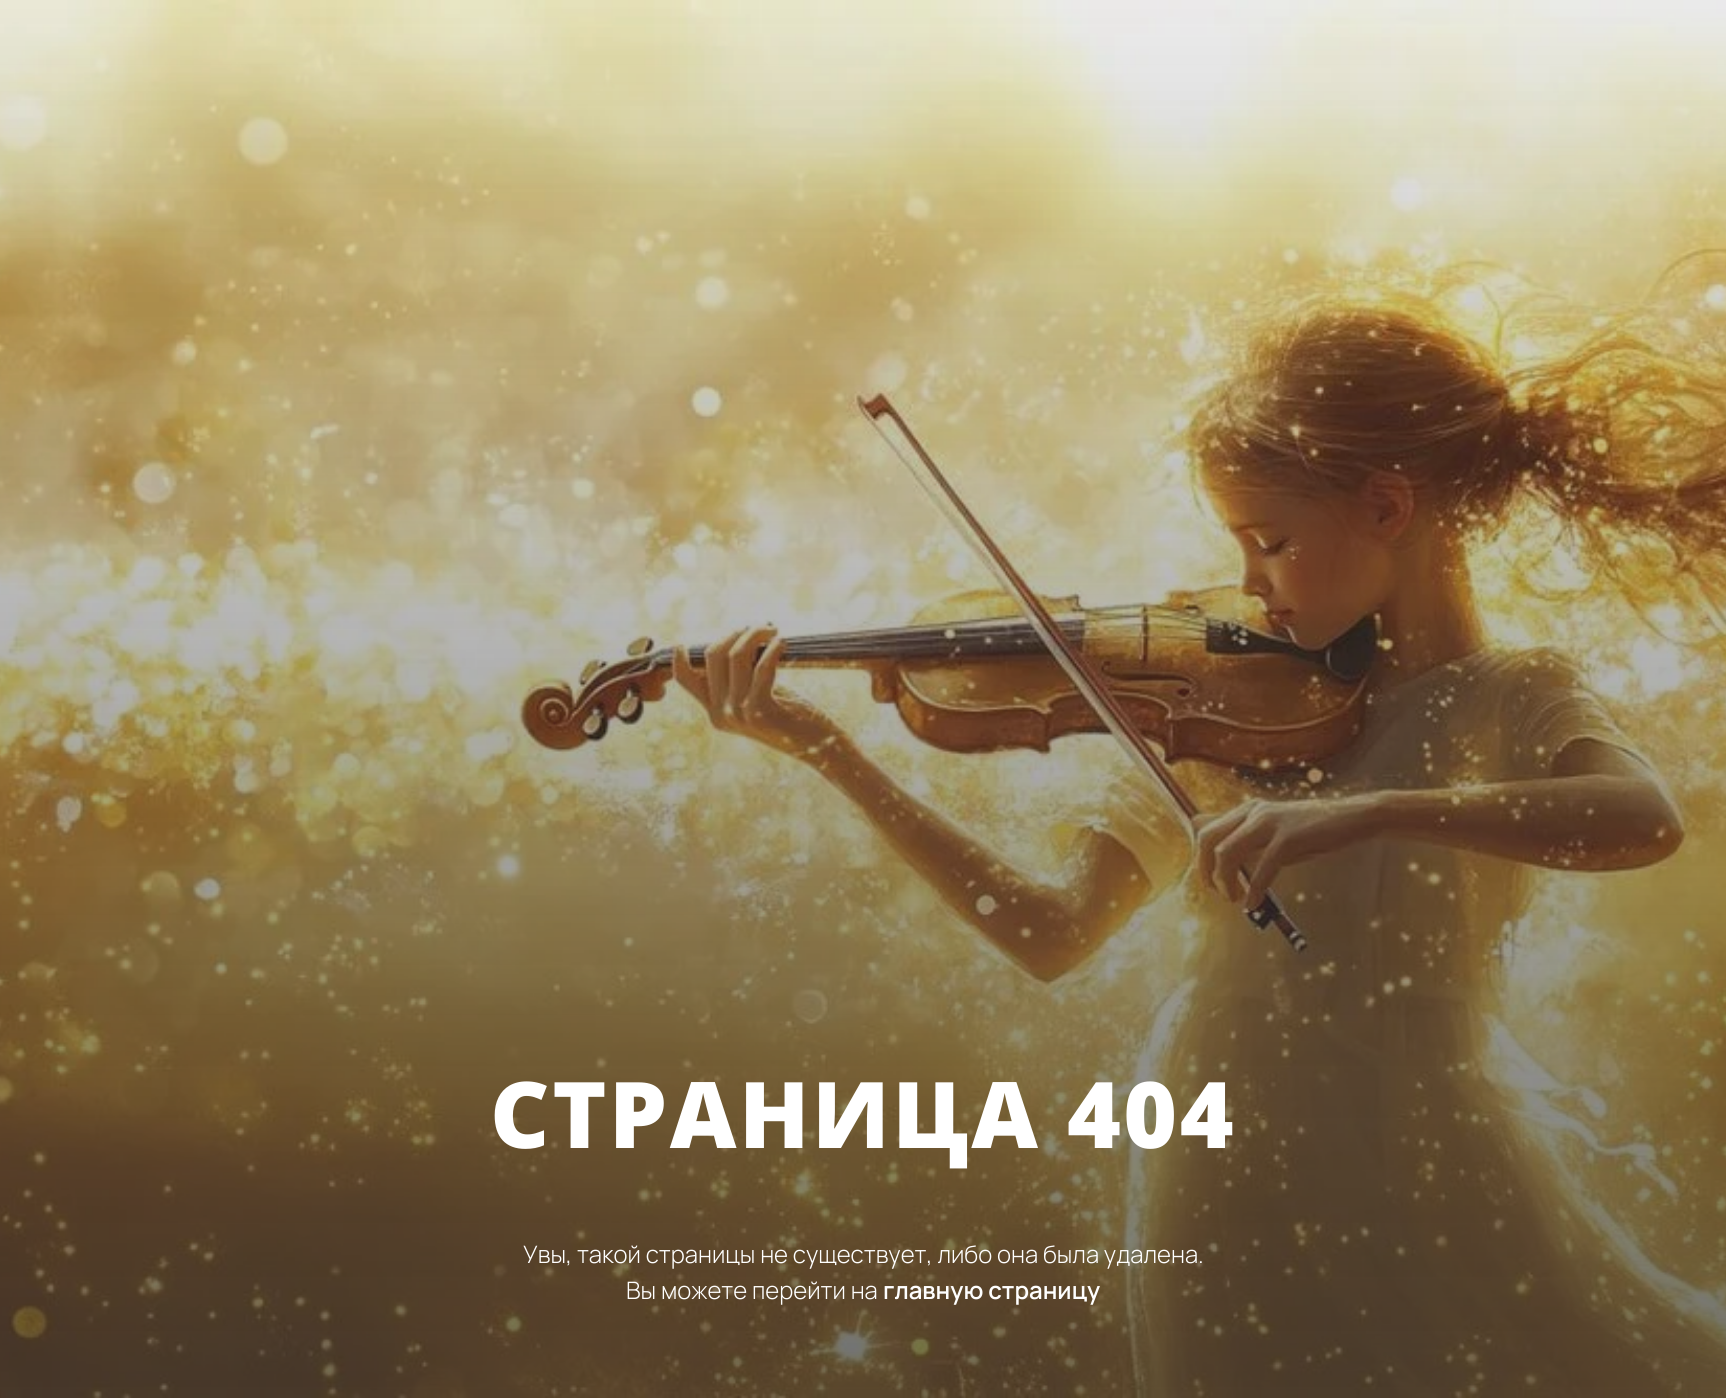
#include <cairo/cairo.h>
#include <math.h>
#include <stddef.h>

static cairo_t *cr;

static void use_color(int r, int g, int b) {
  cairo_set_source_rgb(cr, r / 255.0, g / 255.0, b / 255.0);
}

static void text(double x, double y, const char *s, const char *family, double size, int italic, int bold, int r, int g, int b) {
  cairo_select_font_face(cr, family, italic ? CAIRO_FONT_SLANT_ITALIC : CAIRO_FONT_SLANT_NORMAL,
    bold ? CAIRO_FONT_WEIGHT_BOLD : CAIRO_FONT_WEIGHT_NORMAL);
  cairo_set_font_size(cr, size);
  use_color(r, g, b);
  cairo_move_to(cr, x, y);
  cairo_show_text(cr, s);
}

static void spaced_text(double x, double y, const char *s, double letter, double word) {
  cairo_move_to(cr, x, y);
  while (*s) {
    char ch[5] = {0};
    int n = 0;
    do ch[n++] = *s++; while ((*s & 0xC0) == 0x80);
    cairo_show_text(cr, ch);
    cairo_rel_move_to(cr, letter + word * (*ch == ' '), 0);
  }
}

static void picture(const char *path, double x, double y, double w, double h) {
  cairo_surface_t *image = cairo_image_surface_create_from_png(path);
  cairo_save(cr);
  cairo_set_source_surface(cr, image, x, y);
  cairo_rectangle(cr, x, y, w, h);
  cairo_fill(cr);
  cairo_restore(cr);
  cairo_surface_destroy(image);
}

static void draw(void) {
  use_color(255, 255, 255);
  cairo_paint(cr);
  picture("img_01.png", 0, 0, 1726, 1398);
  cairo_select_font_face(cr, "Open Sans ExtraBold", CAIRO_FONT_SLANT_NORMAL, CAIRO_FONT_WEIGHT_NORMAL);
  cairo_set_font_size(cr, 92);
  use_color(255, 255, 255);
  spaced_text(490, 1148, "СТРАНИЦА 404", 2.5, 0);
  text(523, 1263, "Увы, такой страницы не существует, либо она была удалена.", "Manrope Light", 24, 0, 0, 255, 255, 255);
  text(626, 1299, "Вы можете перейти на", "Manrope Light", 24, 0, 0, 255, 255, 255);
  text(883, 1299, "главную страницу", "Manrope SemiBold", 24, 0, 0, 255, 255, 255);
}

int main(void) {
  cairo_surface_t *surface = cairo_image_surface_create(CAIRO_FORMAT_RGB24, 1726, 1398);
  cr = cairo_create(surface);
  cairo_font_options_t *options = cairo_font_options_create();
  cairo_font_options_set_hint_metrics(options, CAIRO_HINT_METRICS_OFF);
  cairo_font_options_set_hint_style(options, CAIRO_HINT_STYLE_NONE);
  cairo_set_font_options(cr, options);
  cairo_set_miter_limit(cr, 4);
  draw();
  cairo_surface_write_to_png(surface, "out.png");
  cairo_font_options_destroy(options);
  cairo_destroy(cr);
  cairo_surface_destroy(surface);
  return 0;
}
